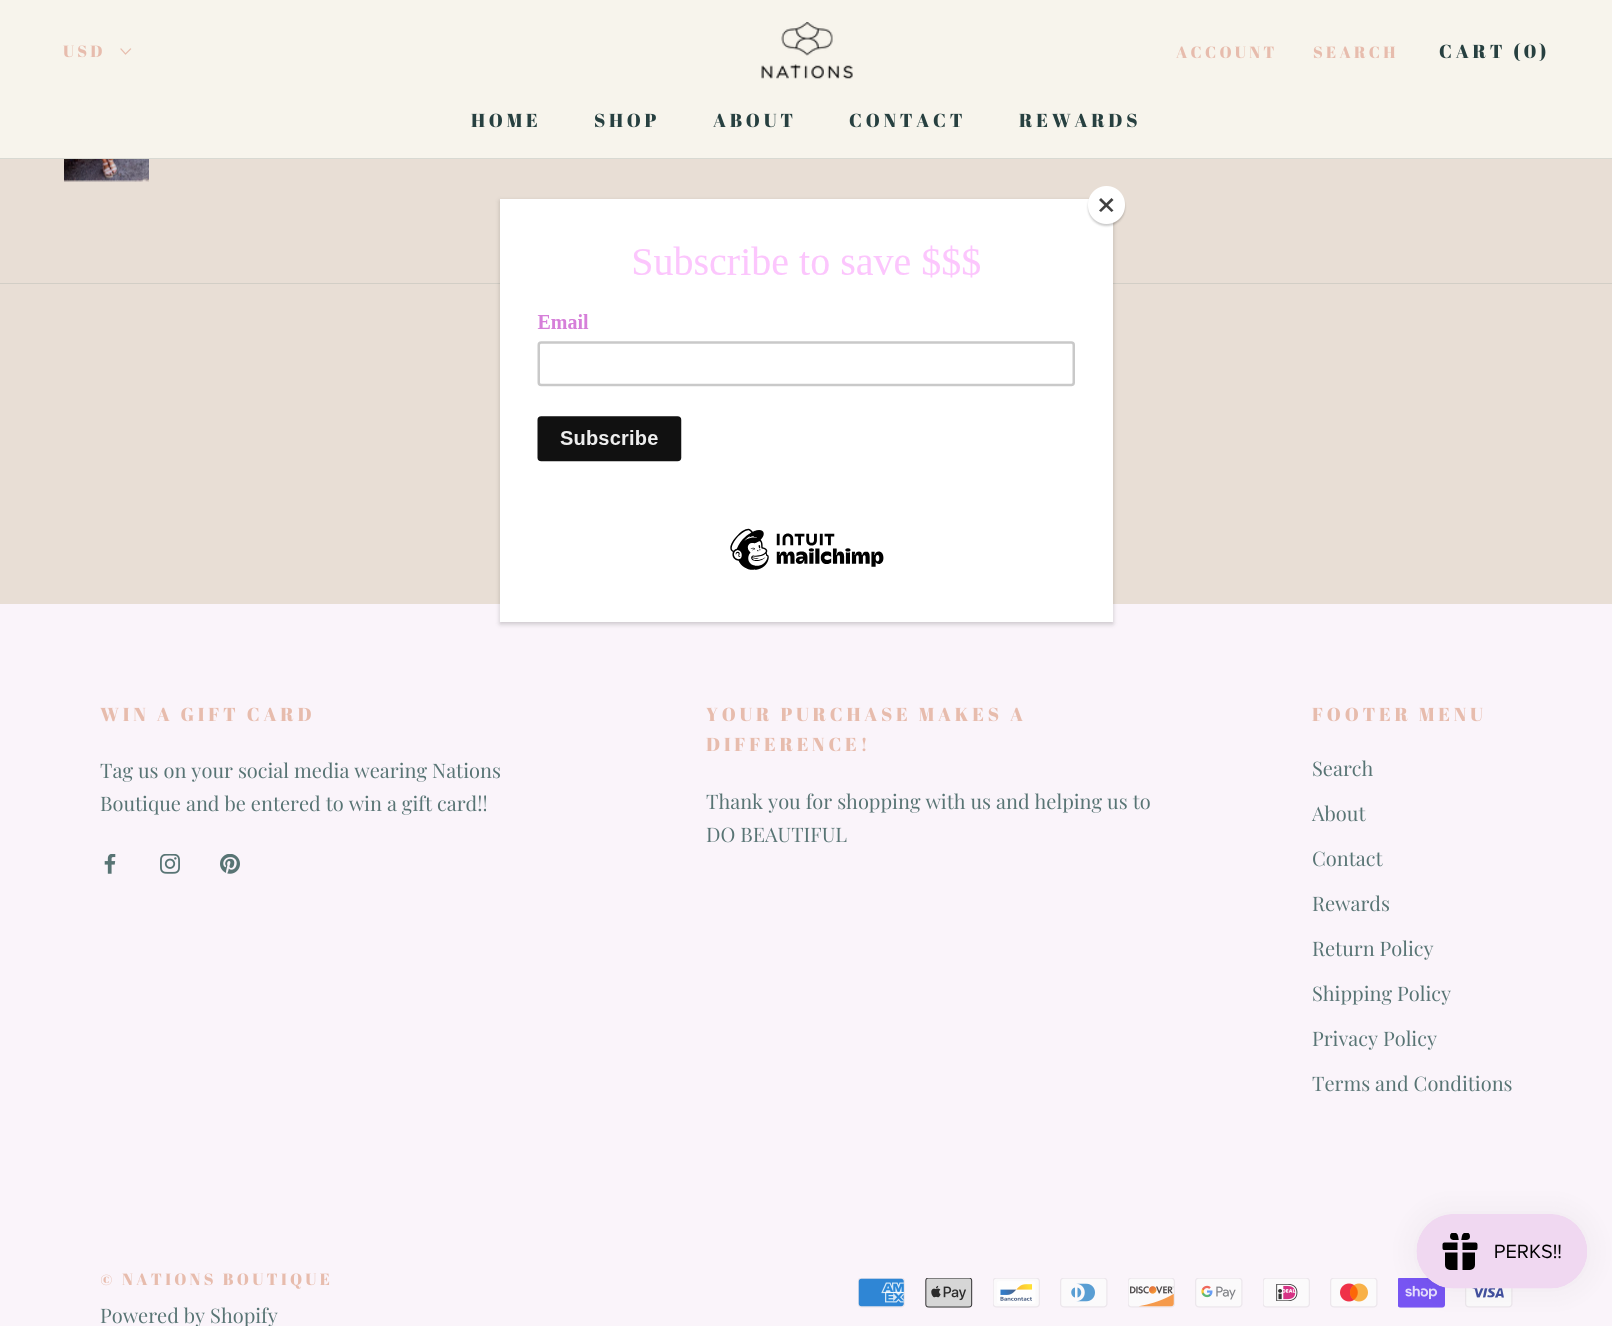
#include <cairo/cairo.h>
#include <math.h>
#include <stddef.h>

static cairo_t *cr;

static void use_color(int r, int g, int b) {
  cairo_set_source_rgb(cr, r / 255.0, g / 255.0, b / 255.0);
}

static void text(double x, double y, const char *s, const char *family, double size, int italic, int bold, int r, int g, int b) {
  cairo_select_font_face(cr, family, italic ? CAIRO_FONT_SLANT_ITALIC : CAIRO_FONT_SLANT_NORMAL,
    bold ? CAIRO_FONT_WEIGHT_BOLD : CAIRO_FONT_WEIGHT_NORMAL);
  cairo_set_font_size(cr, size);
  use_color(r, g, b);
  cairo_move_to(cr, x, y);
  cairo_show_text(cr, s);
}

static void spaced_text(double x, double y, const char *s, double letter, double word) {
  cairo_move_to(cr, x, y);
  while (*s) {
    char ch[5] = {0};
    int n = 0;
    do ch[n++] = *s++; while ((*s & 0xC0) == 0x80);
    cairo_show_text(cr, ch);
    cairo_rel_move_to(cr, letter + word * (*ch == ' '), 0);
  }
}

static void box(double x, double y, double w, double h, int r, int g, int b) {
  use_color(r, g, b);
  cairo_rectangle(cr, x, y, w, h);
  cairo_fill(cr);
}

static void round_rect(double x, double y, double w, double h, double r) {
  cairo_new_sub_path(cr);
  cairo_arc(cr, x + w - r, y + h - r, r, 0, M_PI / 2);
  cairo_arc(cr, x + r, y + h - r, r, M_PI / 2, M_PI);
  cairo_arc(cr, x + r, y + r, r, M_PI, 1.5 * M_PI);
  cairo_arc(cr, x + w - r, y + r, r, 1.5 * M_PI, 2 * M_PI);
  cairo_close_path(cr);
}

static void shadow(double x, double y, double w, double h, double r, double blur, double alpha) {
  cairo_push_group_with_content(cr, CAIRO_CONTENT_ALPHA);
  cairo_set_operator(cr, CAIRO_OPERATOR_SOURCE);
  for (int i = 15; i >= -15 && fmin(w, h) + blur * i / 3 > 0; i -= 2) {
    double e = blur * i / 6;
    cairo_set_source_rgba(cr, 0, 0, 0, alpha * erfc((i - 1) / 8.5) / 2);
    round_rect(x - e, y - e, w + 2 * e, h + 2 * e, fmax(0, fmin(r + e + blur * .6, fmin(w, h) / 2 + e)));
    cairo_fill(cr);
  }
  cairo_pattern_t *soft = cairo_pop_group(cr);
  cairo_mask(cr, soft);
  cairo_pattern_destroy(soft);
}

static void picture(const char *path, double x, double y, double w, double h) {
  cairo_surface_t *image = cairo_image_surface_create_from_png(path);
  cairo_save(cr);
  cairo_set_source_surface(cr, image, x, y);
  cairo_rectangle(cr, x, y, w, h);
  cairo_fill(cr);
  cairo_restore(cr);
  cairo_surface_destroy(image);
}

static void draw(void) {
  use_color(232, 222, 213);
  cairo_paint(cr);
  box(0, 0, 1612, 158, 247, 244, 236);
  box(0, 158, 1612, 1, 216, 217, 210);
  picture("img_01.png", 761, 22, 92, 57);
  cairo_new_path(cr);
  cairo_move_to(cr, 130.5, 49);
  cairo_line_to(cr, 125.5, 54);
  cairo_line_to(cr, 121, 49);
  use_color(231, 188, 173);
  cairo_set_line_width(cr, 1.2);
  cairo_set_line_cap(cr, CAIRO_LINE_CAP_SQUARE);
  cairo_stroke(cr);
  picture("img_02.png", 64, 159, 85, 23);
  box(0, 283, 1612, 1, 210, 206, 198);
  box(0, 604, 1612, 722, 250, 244, 250);
  picture("img_03.png", 104, 854, 12, 20);
  picture("img_04.png", 160, 854, 20, 20);
  picture("img_05.png", 220, 854, 20, 20);
  picture("img_06.png", 858, 1278, 47, 30);
  picture("img_07.png", 925, 1278, 48, 30);
  picture("img_08.png", 993, 1278, 47, 30);
  picture("img_09.png", 1060, 1278, 48, 30);
  picture("img_10.png", 1128, 1278, 47, 30);
  picture("img_11.png", 1195, 1278, 48, 30);
  picture("img_12.png", 1263, 1278, 47, 30);
  picture("img_13.png", 1330, 1278, 48, 30);
  picture("img_14.png", 1398, 1278, 47, 30);
  picture("img_15.png", 1465, 1288, 48, 20);
  use_color(0, 0, 0);
  shadow(500, 201, 613, 423, 0, 2.5, 0.2);
  picture("img_16.png", 500, 199, 613, 423);
  shadow(1088, 189, 37, 37, 18.5, 1, 0.2);
  use_color(255, 255, 255);
  round_rect(1088, 186, 37, 38, 18.5);
  cairo_fill(cr);
  use_color(65, 65, 65);
  cairo_new_path(cr);
  cairo_move_to(cr, 1111.5, 198);
  cairo_line_to(cr, 1113.5, 200);
  cairo_line_to(cr, 1101, 212);
  cairo_line_to(cr, 1099, 210.5);
  cairo_close_path(cr);
  cairo_fill(cr);
  cairo_new_path(cr);
  cairo_move_to(cr, 1099, 200);
  cairo_line_to(cr, 1101, 198);
  cairo_line_to(cr, 1113.5, 210.5);
  cairo_line_to(cr, 1111.5, 212);
  cairo_close_path(cr);
  cairo_fill(cr);
  use_color(0, 0, 0);
  shadow(1416, 1214, 172, 75, 37.5, 15.5, 0.05);
  picture("img_17.png", 1416, 1214, 171, 75);
  cairo_select_font_face(cr, "Abril Fatface", CAIRO_FONT_SLANT_NORMAL, CAIRO_FONT_WEIGHT_NORMAL);
  cairo_set_font_size(cr, 16.25);
  use_color(231, 188, 173);
  spaced_text(1176, 58, "ACCOUNT", 3.25, 0);
  spaced_text(1313, 58, "SEARCH", 3.25, 0);
  cairo_set_font_size(cr, 18.75);
  use_color(39, 64, 64);
  spaced_text(1439, 58, "CART (0)", 3.75, 0);
  cairo_set_font_size(cr, 16.25);
  use_color(231, 188, 173);
  spaced_text(63, 57, "USD", 3.25, 0);
  cairo_set_font_size(cr, 18.75);
  use_color(39, 64, 64);
  spaced_text(471, 127, "HOME", 3.75, 0);
  spaced_text(594, 127, "SHOP", 3.75, 0);
  spaced_text(713, 127, "ABOUT", 3.75, 0);
  spaced_text(849, 127, "CONTACT", 3.75, 0);
  spaced_text(1019, 127, "REWARDS", 3.75, 0);
  use_color(231, 188, 173);
  spaced_text(100, 721, "WIN A GIFT CARD", 3.75, 0);
  text(100, 778, "Tag us on your social media wearing Nations", "Playfair Display", 20, 0, 0, 88, 116, 116);
  text(100, 811, "Boutique and be entered to win a gift card!!", "Playfair Display", 20, 0, 0, 88, 116, 116);
  cairo_select_font_face(cr, "Abril Fatface", CAIRO_FONT_SLANT_NORMAL, CAIRO_FONT_WEIGHT_NORMAL);
  cairo_set_font_size(cr, 18.75);
  use_color(231, 188, 173);
  spaced_text(706, 721, "YOUR PURCHASE MAKES A", 3.75, 0);
  spaced_text(706, 751, "DIFFERENCE!", 3.75, 0);
  text(706, 809, "Thank you for shopping with us and helping us to", "Playfair Display", 20, 0, 0, 88, 116, 116);
  text(706, 842, "DO BEAUTIFUL", "Playfair Display", 20, 0, 0, 88, 116, 116);
  cairo_select_font_face(cr, "Abril Fatface", CAIRO_FONT_SLANT_NORMAL, CAIRO_FONT_WEIGHT_NORMAL);
  cairo_set_font_size(cr, 18.75);
  use_color(231, 188, 173);
  spaced_text(1312, 721, "FOOTER MENU", 3.75, 0);
  text(1312, 776, "Search", "Playfair Display", 20, 0, 0, 88, 116, 116);
  text(1312, 821, "About", "Playfair Display", 20, 0, 0, 88, 116, 116);
  text(1312, 866, "Contact", "Playfair Display", 20, 0, 0, 88, 116, 116);
  text(1312, 911, "Rewards", "Playfair Display", 20, 0, 0, 88, 116, 116);
  text(1312, 956, "Return Policy", "Playfair Display", 20, 0, 0, 88, 116, 116);
  text(1312, 1001, "Shipping Policy", "Playfair Display", 20, 0, 0, 88, 116, 116);
  text(1312, 1046, "Privacy Policy", "Playfair Display", 20, 0, 0, 88, 116, 116);
  text(1312, 1091, "Terms and Conditions", "Playfair Display", 20, 0, 0, 88, 116, 116);
  cairo_select_font_face(cr, "Abril Fatface", CAIRO_FONT_SLANT_NORMAL, CAIRO_FONT_WEIGHT_NORMAL);
  cairo_set_font_size(cr, 16.25);
  use_color(231, 188, 173);
  spaced_text(100, 1285, "© NATIONS BOUTIQUE", 3.25, 0);
  text(100, 1323, "Powered by Shopify", "Playfair Display", 20, 0, 0, 88, 116, 116);
}

int main(void) {
  cairo_surface_t *surface = cairo_image_surface_create(CAIRO_FORMAT_RGB24, 1612, 1326);
  cr = cairo_create(surface);
  cairo_font_options_t *options = cairo_font_options_create();
  cairo_font_options_set_hint_metrics(options, CAIRO_HINT_METRICS_OFF);
  cairo_font_options_set_hint_style(options, CAIRO_HINT_STYLE_NONE);
  cairo_set_font_options(cr, options);
  cairo_set_miter_limit(cr, 4);
  draw();
  cairo_surface_write_to_png(surface, "out.png");
  cairo_font_options_destroy(options);
  cairo_destroy(cr);
  cairo_surface_destroy(surface);
  return 0;
}
